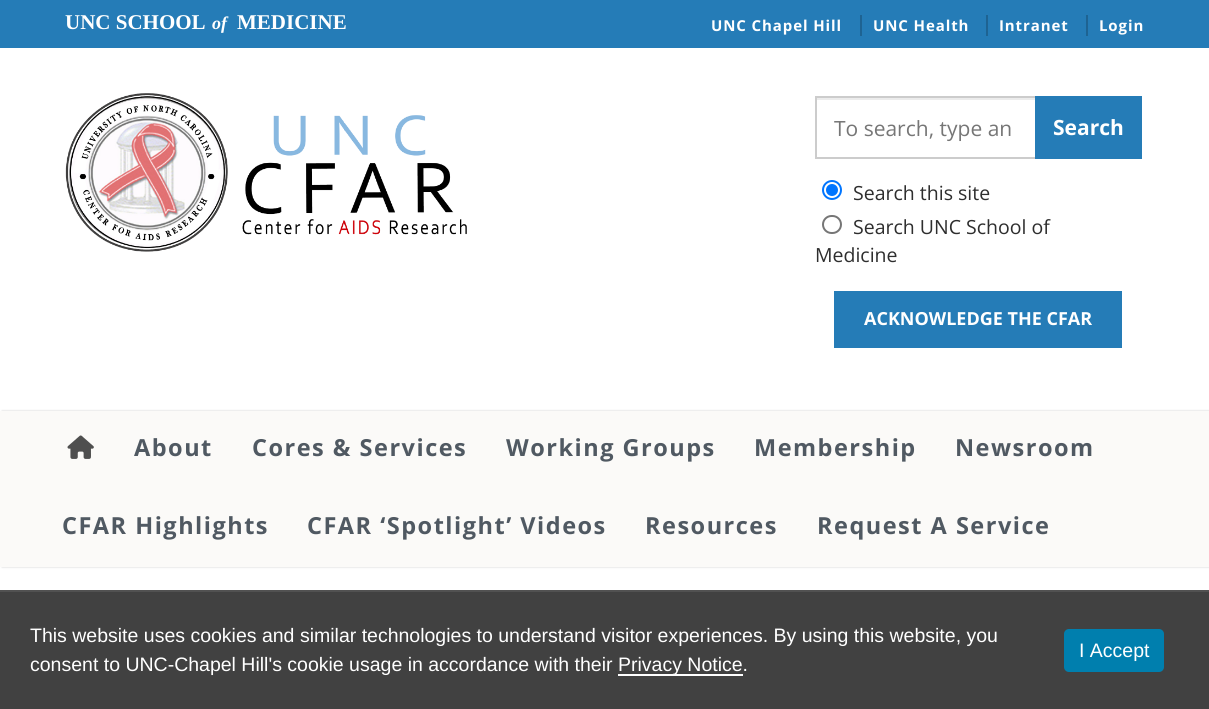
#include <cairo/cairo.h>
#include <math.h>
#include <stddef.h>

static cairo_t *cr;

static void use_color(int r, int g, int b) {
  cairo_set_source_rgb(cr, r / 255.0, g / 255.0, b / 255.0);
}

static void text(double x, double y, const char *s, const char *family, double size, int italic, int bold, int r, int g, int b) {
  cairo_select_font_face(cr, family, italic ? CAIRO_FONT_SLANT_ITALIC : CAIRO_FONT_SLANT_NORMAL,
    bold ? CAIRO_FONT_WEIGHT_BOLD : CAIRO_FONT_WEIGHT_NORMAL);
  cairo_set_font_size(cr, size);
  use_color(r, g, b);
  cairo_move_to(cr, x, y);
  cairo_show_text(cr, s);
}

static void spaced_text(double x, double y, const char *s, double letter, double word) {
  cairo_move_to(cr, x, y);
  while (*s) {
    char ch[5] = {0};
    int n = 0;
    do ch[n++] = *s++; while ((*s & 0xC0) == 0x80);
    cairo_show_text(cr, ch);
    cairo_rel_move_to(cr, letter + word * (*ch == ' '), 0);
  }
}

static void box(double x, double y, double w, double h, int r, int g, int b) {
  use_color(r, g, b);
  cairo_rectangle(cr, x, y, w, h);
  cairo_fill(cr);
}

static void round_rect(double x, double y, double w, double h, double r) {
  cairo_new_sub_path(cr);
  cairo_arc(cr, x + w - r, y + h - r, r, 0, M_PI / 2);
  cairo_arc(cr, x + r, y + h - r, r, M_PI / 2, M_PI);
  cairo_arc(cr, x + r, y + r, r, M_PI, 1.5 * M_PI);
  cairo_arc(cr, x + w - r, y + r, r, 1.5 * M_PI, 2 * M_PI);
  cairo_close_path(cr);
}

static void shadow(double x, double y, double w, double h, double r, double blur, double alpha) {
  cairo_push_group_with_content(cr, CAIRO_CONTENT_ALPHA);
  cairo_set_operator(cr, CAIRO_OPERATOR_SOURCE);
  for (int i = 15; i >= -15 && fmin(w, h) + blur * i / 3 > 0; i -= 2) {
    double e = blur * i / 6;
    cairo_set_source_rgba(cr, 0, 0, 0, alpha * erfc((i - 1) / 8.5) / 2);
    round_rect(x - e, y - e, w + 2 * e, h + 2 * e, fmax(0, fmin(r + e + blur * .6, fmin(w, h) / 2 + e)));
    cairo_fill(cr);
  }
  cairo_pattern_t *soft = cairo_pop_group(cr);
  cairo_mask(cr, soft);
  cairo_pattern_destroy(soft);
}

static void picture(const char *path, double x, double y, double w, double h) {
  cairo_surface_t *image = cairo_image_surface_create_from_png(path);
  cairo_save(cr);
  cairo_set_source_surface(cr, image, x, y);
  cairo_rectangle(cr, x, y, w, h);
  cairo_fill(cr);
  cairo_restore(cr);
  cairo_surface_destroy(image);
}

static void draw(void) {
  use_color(255, 255, 255);
  cairo_paint(cr);
  box(0, 0, 1209, 48, 37, 124, 183);
  box(860, 15, 2, 21, 30, 99, 146);
  box(986, 15, 2, 21, 30, 99, 146);
  box(1086, 15, 2, 21, 30, 99, 146);
  picture("img_01.png", 65, 93, 402, 159);
  box(816, 98, 219, 2, 236, 236, 236);
  cairo_rectangle(cr, 816, 97, 220, 61);
  use_color(204, 204, 204);
  cairo_stroke(cr);
  box(1035, 96, 107, 63, 37, 124, 183);
  cairo_arc(cr, 832, 190, 9, 0, 2 * M_PI);
  use_color(0, 117, 255);
  cairo_stroke(cr);
  cairo_arc(cr, 832, 190, 6, 0, 2 * M_PI);
  cairo_fill(cr);
  round_rect(823, 216, 18, 17, 8.5);
  use_color(118, 118, 118);
  cairo_stroke(cr);
  box(834, 291, 288, 57, 37, 124, 183);
  use_color(189, 189, 189);
  shadow(2, 411, 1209, 156, 0, 1, 0.75);
  box(0, 411, 1209, 156, 251, 250, 248);
  picture("img_02.png", 67, 435, 27, 24);
  box(0, 592, 1209, 117, 65, 65, 65);
  box(0, 590, 1209, 2, 81, 81, 81);
  box(618, 674, 125, 2, 255, 255, 255);
  use_color(0, 127, 174);
  round_rect(1064, 629, 100, 43, 5);
  cairo_fill(cr);
  text(65, 29, "UNC SCHOOL", "Liberation Serif", 21, 0, 1, 255, 255, 255);
  text(212, 29, "of", "Liberation Serif", 18, 1, 1, 255, 255, 255);
  text(237, 29, "MEDICINE", "Liberation Serif", 21, 0, 1, 255, 255, 255);
  cairo_select_font_face(cr, "Open Sans", CAIRO_FONT_SLANT_NORMAL, CAIRO_FONT_WEIGHT_BOLD);
  cairo_set_font_size(cr, 15);
  spaced_text(711, 31, "UNC Chapel Hill", 0.9, 0);
  spaced_text(873, 31, "UNC Health", 0.9, 0);
  spaced_text(999, 31, "Intranet", 0.9, 0);
  spaced_text(1099, 31, "Login", 0.9, 0);
  text(834, 136, "To search, type an", "Open Sans", 21, 0, 0, 118, 118, 118);
  text(1053, 135, "Search", "Open Sans", 21, 0, 1, 255, 255, 255);
  text(853, 200, "Search this site", "Open Sans", 19.5, 0, 0, 46, 46, 46);
  text(853, 234, "Search UNC School of", "Open Sans", 19.5, 0, 0, 46, 46, 46);
  text(815, 262, "Medicine", "Open Sans", 19.5, 0, 0, 46, 46, 46);
  text(864, 325, "ACKNOWLEDGE THE CFAR", "Open Sans", 18, 0, 1, 255, 255, 255);
  cairo_set_font_size(cr, 23.5);
  use_color(80, 89, 98);
  spaced_text(134, 456, "About", 1.5, 0);
  spaced_text(252, 456, "Cores & Services", 1.5, 0);
  spaced_text(506, 456, "Working Groups", 1.5, 0);
  spaced_text(754, 456, "Membership", 1.5, 0);
  spaced_text(955, 456, "Newsroom", 1.5, 0);
  spaced_text(62, 534, "CFAR Highlights", 1.5, 0);
  spaced_text(307, 534, "CFAR ‘Spotlight’ Videos", 1.5, 0);
  spaced_text(645, 534, "Resources", 1.5, 0);
  spaced_text(817, 534, "Request A Service", 1.5, 0);
  text(30, 642, "This website uses cookies and similar technologies to understand visitor experiences. By using this website, you", "Liberation Sans", 19.5, 0, 0, 255, 255, 255);
  text(30, 671, "consent to UNC-Chapel Hill's cookie usage in accordance with their", "Liberation Sans", 19.5, 0, 0, 255, 255, 255);
  text(618, 671, "Privacy Notice.", "Liberation Sans", 19.5, 0, 0, 255, 255, 255);
  text(1079, 657, "I Accept", "Liberation Sans", 19.5, 0, 0, 255, 255, 255);
}

int main(void) {
  cairo_surface_t *surface = cairo_image_surface_create(CAIRO_FORMAT_RGB24, 1209, 709);
  cr = cairo_create(surface);
  cairo_font_options_t *options = cairo_font_options_create();
  cairo_font_options_set_hint_metrics(options, CAIRO_HINT_METRICS_OFF);
  cairo_font_options_set_hint_style(options, CAIRO_HINT_STYLE_NONE);
  cairo_set_font_options(cr, options);
  cairo_set_miter_limit(cr, 4);
  draw();
  cairo_surface_write_to_png(surface, "out.png");
  cairo_font_options_destroy(options);
  cairo_destroy(cr);
  cairo_surface_destroy(surface);
  return 0;
}
